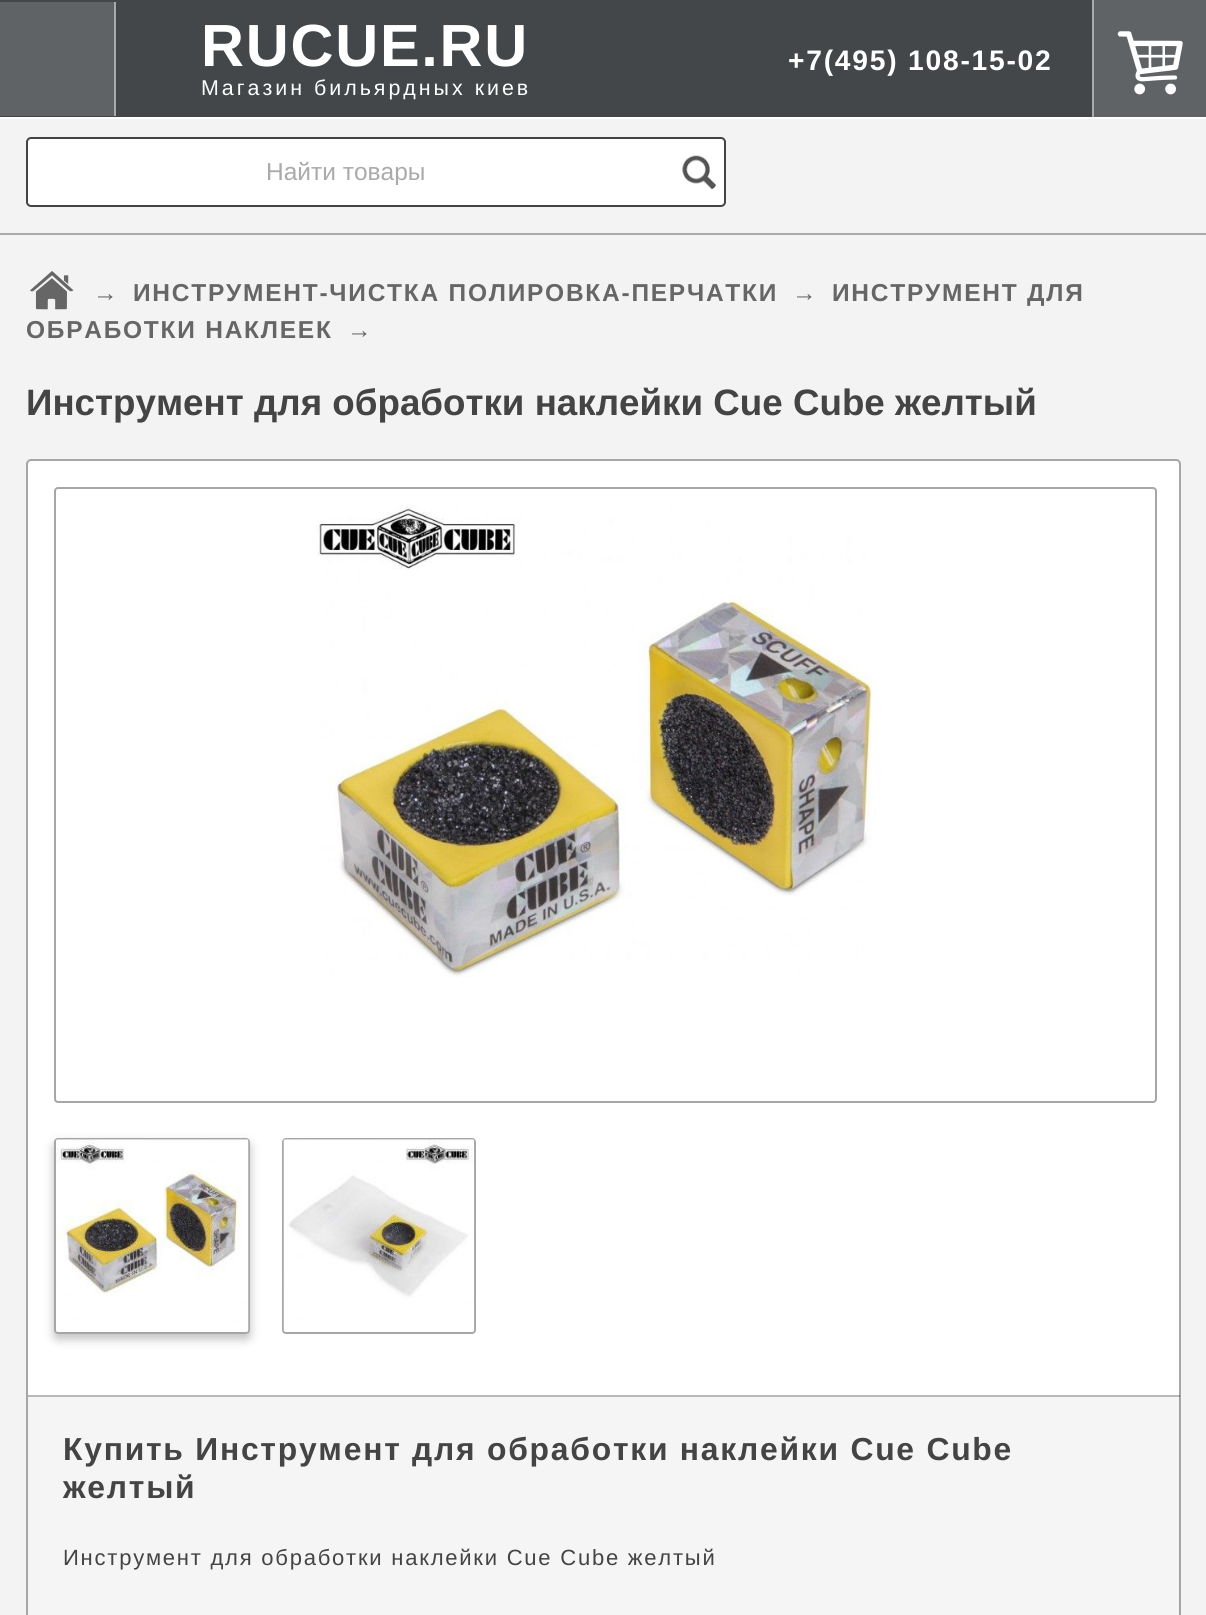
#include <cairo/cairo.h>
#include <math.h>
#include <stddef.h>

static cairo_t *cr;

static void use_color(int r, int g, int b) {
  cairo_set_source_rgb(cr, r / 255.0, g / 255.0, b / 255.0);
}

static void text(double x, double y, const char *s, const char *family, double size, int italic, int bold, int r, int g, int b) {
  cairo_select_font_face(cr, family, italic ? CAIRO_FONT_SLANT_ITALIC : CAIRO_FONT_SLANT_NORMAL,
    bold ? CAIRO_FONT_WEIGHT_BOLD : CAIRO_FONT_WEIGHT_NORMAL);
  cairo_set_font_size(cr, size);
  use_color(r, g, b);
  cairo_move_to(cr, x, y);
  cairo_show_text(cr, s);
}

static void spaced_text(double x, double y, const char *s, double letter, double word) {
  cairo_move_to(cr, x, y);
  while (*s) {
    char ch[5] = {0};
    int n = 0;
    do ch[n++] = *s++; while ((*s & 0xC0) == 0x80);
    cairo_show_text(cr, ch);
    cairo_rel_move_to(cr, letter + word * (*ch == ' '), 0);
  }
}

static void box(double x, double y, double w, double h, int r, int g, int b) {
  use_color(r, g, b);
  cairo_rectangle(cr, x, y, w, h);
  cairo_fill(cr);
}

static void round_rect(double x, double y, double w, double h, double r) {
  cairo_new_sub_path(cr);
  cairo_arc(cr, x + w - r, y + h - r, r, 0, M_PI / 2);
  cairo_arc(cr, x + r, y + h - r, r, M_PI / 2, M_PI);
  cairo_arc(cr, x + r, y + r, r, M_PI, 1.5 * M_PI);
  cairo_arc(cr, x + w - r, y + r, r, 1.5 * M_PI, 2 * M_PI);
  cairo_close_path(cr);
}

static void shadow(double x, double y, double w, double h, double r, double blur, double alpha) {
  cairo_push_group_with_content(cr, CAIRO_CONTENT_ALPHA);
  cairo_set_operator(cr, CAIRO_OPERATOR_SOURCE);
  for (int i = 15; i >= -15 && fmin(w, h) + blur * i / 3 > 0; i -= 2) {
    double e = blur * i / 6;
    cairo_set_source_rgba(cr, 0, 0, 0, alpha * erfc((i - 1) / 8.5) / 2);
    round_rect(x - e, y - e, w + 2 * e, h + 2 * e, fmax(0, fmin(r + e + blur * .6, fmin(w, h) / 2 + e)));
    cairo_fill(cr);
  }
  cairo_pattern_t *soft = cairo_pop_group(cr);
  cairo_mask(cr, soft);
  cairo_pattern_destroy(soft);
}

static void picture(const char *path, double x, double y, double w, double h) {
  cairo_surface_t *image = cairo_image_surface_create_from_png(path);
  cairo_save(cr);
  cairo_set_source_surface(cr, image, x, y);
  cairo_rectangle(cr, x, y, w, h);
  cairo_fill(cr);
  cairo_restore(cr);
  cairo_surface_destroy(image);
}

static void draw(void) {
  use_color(243, 243, 243);
  cairo_paint(cr);
  box(0, 0, 1092, 117, 67, 71, 74);
  box(0, 117, 1206, 2, 255, 255, 255);
  box(0, 2, 114, 114, 95, 99, 101);
  box(114, 2, 2, 114, 167, 169, 170);
  box(1094, 0, 112, 117, 95, 99, 101);
  box(1092, 0, 2, 117, 167, 169, 170);
  picture("img_01.png", 1117, 31, 66, 64);
  use_color(255, 255, 255);
  round_rect(27, 138, 698, 68, 4);
  cairo_fill_preserve(cr);
  use_color(68, 68, 68);
  cairo_stroke(cr);
  picture("img_02.png", 682, 155, 34, 34);
  box(0, 233, 1206, 2, 170, 170, 170);
  picture("img_03.png", 30, 271, 44, 39);
  use_color(255, 255, 255);
  round_rect(26, 459, 1155, 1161, 5);
  cairo_fill(cr);
  round_rect(27, 460, 1153, 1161, 4);
  cairo_set_source_rgba(cr, 0, 0, 0, 0.35);
  cairo_stroke(cr);
  round_rect(55, 488, 1101, 614, 3);
  use_color(166, 166, 166);
  cairo_stroke(cr);
  picture("img_04.png", 316, 505, 557, 473);
  cairo_save(cr);
  cairo_set_fill_rule(cr, CAIRO_FILL_RULE_EVEN_ODD);
  cairo_new_path(cr);
  cairo_move_to(cr, 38, 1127);
  cairo_line_to(cr, 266, 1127);
  cairo_line_to(cr, 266, 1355);
  cairo_line_to(cr, 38, 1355);
  cairo_close_path(cr);
  cairo_move_to(cr, 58, 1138);
  cairo_line_to(cr, 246, 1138);
  cairo_curve_to(cr, 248, 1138, 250, 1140, 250, 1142);
  cairo_line_to(cr, 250, 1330);
  cairo_curve_to(cr, 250, 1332, 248, 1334, 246, 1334);
  cairo_line_to(cr, 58, 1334);
  cairo_curve_to(cr, 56, 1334, 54, 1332, 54, 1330);
  cairo_line_to(cr, 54, 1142);
  cairo_curve_to(cr, 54, 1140, 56, 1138, 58, 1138);
  cairo_close_path(cr);
  cairo_clip(cr);
  use_color(0, 0, 0);
  shadow(54, 1143, 196, 196, 4, 5, 0.25);
  cairo_restore(cr);
  round_rect(55, 1139, 194, 194, 3);
  cairo_set_source_rgba(cr, 0, 0, 0, 0.35);
  cairo_stroke(cr);
  picture("img_05.png", 56, 1139, 193, 193);
  round_rect(283, 1139, 192, 194, 3);
  use_color(166, 166, 166);
  cairo_stroke(cr);
  picture("img_06.png", 283, 1139, 192, 193);
  cairo_set_source_rgba(cr, 0, 0, 0, 0.04);
  cairo_rectangle(cr, 28, 1395, 1152, 220);
  cairo_fill(cr);
  cairo_set_source_rgba(cr, 0, 0, 0, 0.25);
  cairo_rectangle(cr, 28, 1395, 1152, 2);
  cairo_fill(cr);
  cairo_select_font_face(cr, "Liberation Sans", CAIRO_FONT_SLANT_NORMAL, CAIRO_FONT_WEIGHT_BOLD);
  cairo_set_font_size(cr, 59.5);
  use_color(255, 255, 255);
  spaced_text(201, 66, "RUCUE.RU", 1.75, 0);
  cairo_select_font_face(cr, "Liberation Sans", CAIRO_FONT_SLANT_NORMAL, CAIRO_FONT_WEIGHT_NORMAL);
  cairo_set_font_size(cr, 21.4);
  spaced_text(201, 95, "Магазин бильярдных киев", 3, 0);
  cairo_select_font_face(cr, "Liberation Sans", CAIRO_FONT_SLANT_NORMAL, CAIRO_FONT_WEIGHT_BOLD);
  cairo_set_font_size(cr, 28.25);
  spaced_text(788, 70, "+7(495) 108-15-02", 1.75, 0);
  text(266, 180, "Найти товары", "Liberation Sans", 24.5, 0, 0, 170, 170, 170);
  cairo_select_font_face(cr, "Liberation Sans", CAIRO_FONT_SLANT_NORMAL, CAIRO_FONT_WEIGHT_BOLD);
  use_color(102, 102, 102);
  spaced_text(93, 301, "→", 1.75, 0);
  spaced_text(133, 301, "ИНСТРУМЕНТ-ЧИСТКА ПОЛИРОВКА-ПЕРЧАТКИ", 1.75, 0);
  spaced_text(792, 301, "→", 1.75, 0);
  spaced_text(832, 301, "ИНСТРУМЕНТ ДЛЯ", 1.75, 0);
  spaced_text(26, 338, "ОБРАБОТКИ НАКЛЕЕК", 1.75, 0);
  spaced_text(347, 338, "→", 1.75, 0);
  text(26, 415, "Инструмент для обработки наклейки Cue Cube желтый", "Liberation Sans", 36.75, 0, 1, 68, 68, 68);
  cairo_set_font_size(cr, 31.85);
  spaced_text(63, 1460, "Купить Инструмент для обработки наклейки Cue Cube", 1.75, 0);
  spaced_text(63, 1498, "желтый", 1.75, 0);
  cairo_select_font_face(cr, "Liberation Sans", CAIRO_FONT_SLANT_NORMAL, CAIRO_FONT_WEIGHT_NORMAL);
  cairo_set_font_size(cr, 22.05);
  spaced_text(63, 1565, "Инструмент для обработки наклейки Cue Cube желтый", 1.75, 0);
}

int main(void) {
  cairo_surface_t *surface = cairo_image_surface_create(CAIRO_FORMAT_RGB24, 1206, 1615);
  cr = cairo_create(surface);
  cairo_font_options_t *options = cairo_font_options_create();
  cairo_font_options_set_hint_metrics(options, CAIRO_HINT_METRICS_OFF);
  cairo_font_options_set_hint_style(options, CAIRO_HINT_STYLE_NONE);
  cairo_set_font_options(cr, options);
  cairo_set_miter_limit(cr, 4);
  draw();
  cairo_surface_write_to_png(surface, "out.png");
  cairo_font_options_destroy(options);
  cairo_destroy(cr);
  cairo_surface_destroy(surface);
  return 0;
}
